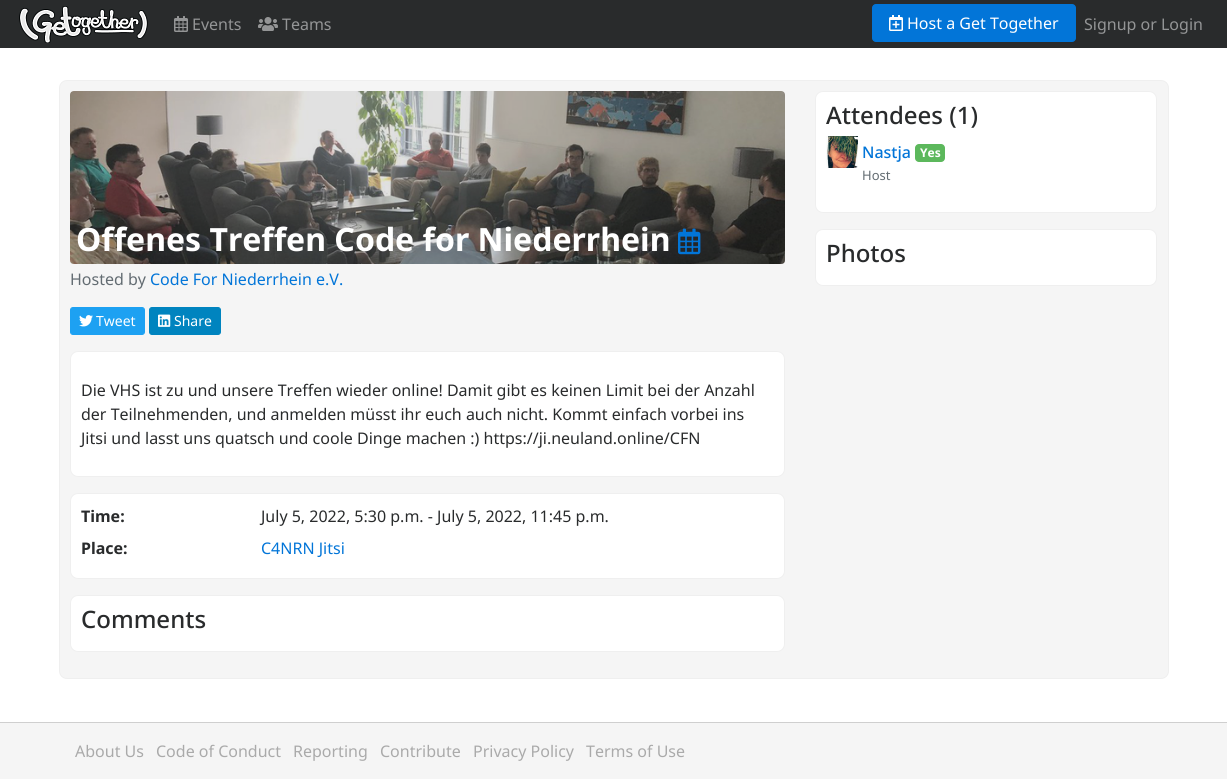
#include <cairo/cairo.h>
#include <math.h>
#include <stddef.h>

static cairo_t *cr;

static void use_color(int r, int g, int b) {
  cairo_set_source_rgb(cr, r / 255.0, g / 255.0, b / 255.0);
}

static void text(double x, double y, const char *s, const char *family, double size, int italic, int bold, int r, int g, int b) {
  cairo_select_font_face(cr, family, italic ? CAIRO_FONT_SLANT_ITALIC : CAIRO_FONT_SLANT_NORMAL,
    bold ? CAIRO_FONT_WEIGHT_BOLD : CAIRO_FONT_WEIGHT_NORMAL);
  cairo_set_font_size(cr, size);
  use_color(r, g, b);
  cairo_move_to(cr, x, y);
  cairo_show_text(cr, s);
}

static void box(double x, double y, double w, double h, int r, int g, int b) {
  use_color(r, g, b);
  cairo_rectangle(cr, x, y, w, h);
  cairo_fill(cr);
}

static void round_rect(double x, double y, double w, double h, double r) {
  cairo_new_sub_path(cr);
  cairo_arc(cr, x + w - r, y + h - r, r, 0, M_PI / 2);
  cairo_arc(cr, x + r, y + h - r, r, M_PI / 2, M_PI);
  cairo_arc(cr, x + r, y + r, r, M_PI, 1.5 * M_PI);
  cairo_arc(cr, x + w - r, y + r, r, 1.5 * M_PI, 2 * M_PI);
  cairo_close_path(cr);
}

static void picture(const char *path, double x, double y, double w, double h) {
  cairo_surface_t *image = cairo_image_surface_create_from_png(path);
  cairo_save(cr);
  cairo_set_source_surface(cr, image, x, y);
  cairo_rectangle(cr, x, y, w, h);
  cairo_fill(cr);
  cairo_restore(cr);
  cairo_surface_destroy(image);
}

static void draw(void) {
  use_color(255, 255, 255);
  cairo_paint(cr);
  box(0, 0, 1227, 48, 41, 43, 44);
  picture("img_01.png", 19, 6, 129, 37);
  picture("img_02.png", 174, 16, 14, 16);
  picture("img_03.png", 258, 17, 20, 14);
  use_color(2, 117, 216);
  round_rect(872.5, 4.5, 203, 37, 3.5);
  cairo_fill_preserve(cr);
  cairo_set_line_width(cr, 1);
  cairo_stroke(cr);
  picture("img_04.png", 889, 15, 14, 16);
  use_color(245, 245, 245);
  round_rect(59.5, 80.5, 1109, 598, 7.5);
  cairo_fill_preserve(cr);
  use_color(239, 239, 239);
  cairo_stroke(cr);
  use_color(255, 255, 255);
  round_rect(815.5, 91.5, 341, 121, 7.5);
  cairo_fill_preserve(cr);
  use_color(239, 239, 239);
  cairo_stroke(cr);
  picture("img_05.png", 826, 136, 32, 32);
  use_color(92, 184, 92);
  round_rect(915, 144, 30, 18, 4);
  cairo_fill(cr);
  use_color(255, 255, 255);
  round_rect(815.5, 229.5, 341, 56, 7.5);
  cairo_fill_preserve(cr);
  use_color(239, 239, 239);
  cairo_stroke(cr);
  picture("img_06.png", 70, 91, 715, 173);
  picture("img_07.png", 678, 228, 23, 27);
  use_color(29, 161, 242);
  round_rect(70.5, 307.5, 74, 27, 2.5);
  cairo_fill_preserve(cr);
  cairo_stroke(cr);
  picture("img_08.png", 79, 315, 14, 12);
  use_color(0, 132, 191);
  round_rect(149.5, 307.5, 71, 27, 2.5);
  cairo_fill_preserve(cr);
  cairo_stroke(cr);
  picture("img_09.png", 158, 314, 13, 13);
  use_color(255, 255, 255);
  round_rect(70.5, 351.5, 714, 125, 7.5);
  cairo_fill_preserve(cr);
  use_color(239, 239, 239);
  cairo_stroke(cr);
  use_color(255, 255, 255);
  round_rect(70.5, 493.5, 714, 85, 7.5);
  cairo_fill_preserve(cr);
  use_color(239, 239, 239);
  cairo_stroke(cr);
  use_color(255, 255, 255);
  round_rect(70.5, 595.5, 714, 56, 7.5);
  cairo_fill_preserve(cr);
  use_color(239, 239, 239);
  cairo_stroke(cr);
  box(0, 723, 1227, 56, 245, 245, 245);
  box(0, 722, 1227, 1, 207, 207, 207);
  text(192, 30, "Events", "Noto Sans", 16, 0, 0, 148, 149, 150);
  text(282, 30, "Teams", "Noto Sans", 16, 0, 0, 148, 149, 150);
  text(907, 29, "Host a Get Together", "Noto Sans", 16, 0, 0, 255, 255, 255);
  text(1084, 30, "Signup or Login", "Noto Sans", 16, 0, 0, 148, 149, 150);
  text(826, 124, "Attendees (1)", "Noto Sans Medium", 24, 0, 0, 41, 43, 44);
  text(862, 158, "Nastja", "Noto Sans Medium", 16, 0, 0, 2, 117, 216);
  text(920, 157, "Yes", "Noto Sans", 12, 0, 1, 255, 255, 255);
  text(862, 180, "Host", "Noto Sans", 13, 0, 0, 99, 108, 114);
  text(826, 262, "Photos", "Noto Sans Medium", 24, 0, 0, 41, 43, 44);
  text(76, 251, "Offenes Treffen Code for Niederrhein", "Noto Sans", 32, 0, 1, 255, 255, 255);
  text(70, 285, "Hosted by", "Noto Sans", 16, 0, 0, 99, 108, 114);
  text(150, 285, "Code For Niederrhein e.V.", "Noto Sans", 16, 0, 0, 2, 117, 216);
  text(96, 326, "Tweet", "Noto Sans", 14, 0, 0, 255, 255, 255);
  text(174, 326, "Share", "Noto Sans", 14, 0, 0, 255, 255, 255);
  text(81, 396, "Die VHS ist zu und unsere Treffen wieder online! Damit gibt es keinen Limit bei der Anzahl", "Noto Sans", 16, 0, 0, 41, 43, 44);
  text(81, 420, "der Teilnehmenden, und anmelden müsst ihr euch auch nicht. Kommt einfach vorbei ins", "Noto Sans", 16, 0, 0, 41, 43, 44);
  text(81, 444, "Jitsi und lasst uns quatsch und coole Dinge machen :) https://ji.neuland.online/CFN", "Noto Sans", 16, 0, 0, 41, 43, 44);
  text(81, 522, "Time:", "Noto Sans", 16, 0, 1, 41, 43, 44);
  text(261, 522, "July 5, 2022, 5:30 p.m. - July 5, 2022, 11:45 p.m.", "Noto Sans", 16, 0, 0, 41, 43, 44);
  text(81, 554, "Place:", "Noto Sans", 16, 0, 1, 41, 43, 44);
  text(261, 554, "C4NRN Jitsi", "Noto Sans", 16, 0, 0, 2, 117, 216);
  text(81, 628, "Comments", "Noto Sans Medium", 24, 0, 0, 41, 43, 44);
  text(75, 757, "About Us", "Noto Sans", 16, 0, 0, 170, 170, 170);
  text(156, 757, "Code of Conduct", "Noto Sans", 16, 0, 0, 170, 170, 170);
  text(293, 757, "Reporting", "Noto Sans", 16, 0, 0, 170, 170, 170);
  text(380, 757, "Contribute", "Noto Sans", 16, 0, 0, 170, 170, 170);
  text(473, 757, "Privacy Policy", "Noto Sans", 16, 0, 0, 170, 170, 170);
  text(586, 757, "Terms of Use", "Noto Sans", 16, 0, 0, 170, 170, 170);
}

int main(void) {
  cairo_surface_t *surface = cairo_image_surface_create(CAIRO_FORMAT_RGB24, 1227, 779);
  cr = cairo_create(surface);
  cairo_font_options_t *options = cairo_font_options_create();
  cairo_font_options_set_hint_metrics(options, CAIRO_HINT_METRICS_OFF);
  cairo_font_options_set_hint_style(options, CAIRO_HINT_STYLE_NONE);
  cairo_set_font_options(cr, options);
  cairo_set_miter_limit(cr, 4);
  draw();
  cairo_surface_write_to_png(surface, "out.png");
  cairo_font_options_destroy(options);
  cairo_destroy(cr);
  cairo_surface_destroy(surface);
  return 0;
}
